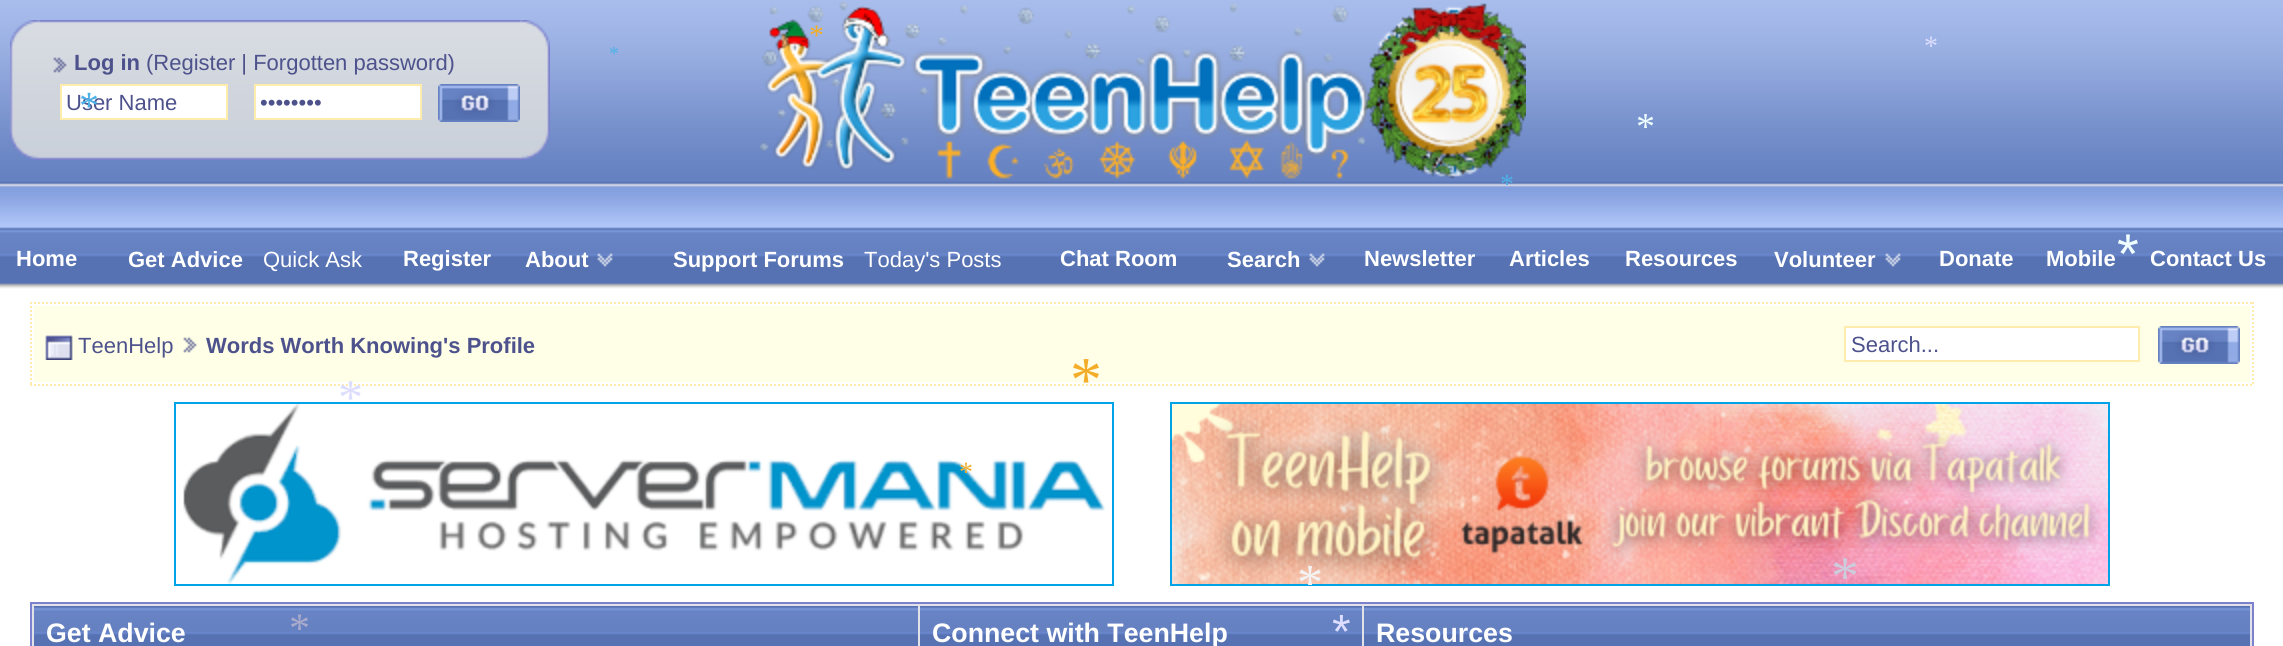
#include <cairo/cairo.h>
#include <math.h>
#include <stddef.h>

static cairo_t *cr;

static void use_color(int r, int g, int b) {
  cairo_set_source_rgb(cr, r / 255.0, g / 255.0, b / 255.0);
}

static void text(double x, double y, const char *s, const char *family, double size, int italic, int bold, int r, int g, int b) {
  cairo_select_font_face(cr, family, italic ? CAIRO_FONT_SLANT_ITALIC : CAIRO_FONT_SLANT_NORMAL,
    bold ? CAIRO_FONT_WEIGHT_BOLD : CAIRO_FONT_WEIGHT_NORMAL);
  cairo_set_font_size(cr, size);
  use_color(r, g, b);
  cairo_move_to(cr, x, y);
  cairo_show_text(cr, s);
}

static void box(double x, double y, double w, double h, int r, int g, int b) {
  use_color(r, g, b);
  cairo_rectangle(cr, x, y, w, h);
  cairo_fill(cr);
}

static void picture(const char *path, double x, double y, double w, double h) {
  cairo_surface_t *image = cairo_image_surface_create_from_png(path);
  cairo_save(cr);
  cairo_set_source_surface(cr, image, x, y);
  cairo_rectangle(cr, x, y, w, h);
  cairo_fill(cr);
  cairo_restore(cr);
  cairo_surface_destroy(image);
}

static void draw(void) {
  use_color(255, 255, 255);
  cairo_paint(cr);
  picture("img_01.png", 0, 0, 2283, 289);
  picture("img_02.png", 10, 20, 30, 140);
  picture("img_03.png", 40, 20, 480, 140);
  picture("img_04.png", 53, 57, 14, 16);
  use_color(255, 255, 255);
  cairo_rectangle(cr, 61, 85, 166, 34);
  cairo_fill_preserve(cr);
  use_color(254, 236, 172);
  cairo_stroke(cr);
  use_color(255, 255, 255);
  cairo_rectangle(cr, 255, 85, 166, 34);
  cairo_fill_preserve(cr);
  use_color(254, 236, 172);
  cairo_stroke(cr);
  picture("img_05.png", 438, 84, 82, 38);
  picture("img_06.png", 520, 20, 30, 140);
  picture("img_07.png", 760, 1, 766, 178);
  picture("img_08.png", 597, 253, 16, 14);
  picture("img_08.png", 1309, 253, 16, 14);
  picture("img_08.png", 1885, 253, 16, 14);
  cairo_new_path(cr);
  cairo_move_to(cr, 30, 303);
  cairo_line_to(cr, 2254, 303);
  cairo_set_dash(cr, (double[]){2, 2}, 2, 0);
  cairo_stroke(cr);
  cairo_new_path(cr);
  cairo_move_to(cr, 2253, 302);
  cairo_line_to(cr, 2253, 386);
  cairo_stroke(cr);
  cairo_new_path(cr);
  cairo_move_to(cr, 30, 385);
  cairo_line_to(cr, 2254, 385);
  cairo_stroke(cr);
  cairo_new_path(cr);
  cairo_move_to(cr, 31, 302);
  cairo_line_to(cr, 31, 386);
  cairo_stroke(cr);
  box(34, 306, 2216, 76, 254, 255, 230);
  picture("img_09.png", 45, 335, 28, 25);
  picture("img_10.png", 183, 337, 14, 16);
  use_color(255, 255, 255);
  cairo_rectangle(cr, 1845, 327, 294, 34);
  cairo_fill_preserve(cr);
  use_color(254, 236, 172);
  cairo_set_dash(cr, NULL, 0, 0);
  cairo_stroke(cr);
  picture("img_11.png", 2158, 326, 82, 38);
  cairo_rectangle(cr, 175, 403, 938, 182);
  use_color(0, 162, 232);
  cairo_stroke(cr);
  picture("img_12.png", 183, 404, 922, 180);
  cairo_rectangle(cr, 1171, 403, 938, 182);
  cairo_stroke(cr);
  picture("img_13.png", 1172, 404, 936, 180);
  use_color(226, 225, 234);
  cairo_rectangle(cr, 31, 603, 2222, 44);
  cairo_fill_preserve(cr);
  use_color(123, 129, 205);
  cairo_stroke(cr);
  box(34, 606, 884, 40, 86, 114, 178);
  picture("img_14.png", 34, 607, 884, 28);
  box(920, 606, 442, 40, 86, 114, 178);
  picture("img_15.png", 920, 607, 442, 28);
  box(1364, 606, 886, 40, 86, 114, 178);
  picture("img_16.png", 1364, 607, 886, 28);
  text(809, 45, "*", "Liberation Serif", 30, 0, 0, 243, 173, 41);
  text(1924, 55, "*", "Liberation Serif", 28, 0, 0, 221, 221, 255);
  text(609, 60, "*", "Liberation Serif", 20, 0, 0, 76, 177, 230);
  text(74, 70, "Log in", "Liberation Sans", 22, 0, 1, 77, 82, 140);
  text(146, 70, "(Register | Forgotten password)", "Liberation Sans", 22, 0, 0, 77, 82, 140);
  text(66, 110, "User Name", "Liberation Sans", 22, 0, 0, 77, 82, 140);
  text(260, 110, "••••••••", "Liberation Sans", 22, 0, 0, 77, 82, 140);
  text(16, 266, "Home", "Liberation Sans", 22, 0, 1, 255, 255, 255);
  text(128, 267, "Get Advice", "Liberation Sans", 22, 0, 1, 255, 255, 255);
  text(263, 267, "Quick Ask", "Liberation Sans", 22, 0, 0, 255, 255, 255);
  text(403, 266, "Register", "Liberation Sans", 22, 0, 1, 255, 255, 255);
  text(525, 267, "About", "Liberation Sans", 22, 0, 1, 255, 255, 255);
  text(673, 267, "Support Forums", "Liberation Sans", 22, 0, 1, 255, 255, 255);
  text(864, 267, "Today's Posts", "Liberation Sans", 22, 0, 0, 255, 255, 255);
  text(1060, 266, "Chat Room", "Liberation Sans", 22, 0, 1, 255, 255, 255);
  text(1227, 267, "Search", "Liberation Sans", 22, 0, 1, 255, 255, 255);
  text(1364, 266, "Newsletter", "Liberation Sans", 22, 0, 1, 255, 255, 255);
  text(1509, 266, "Articles", "Liberation Sans", 22, 0, 1, 255, 255, 255);
  text(1625, 266, "Resources", "Liberation Sans", 22, 0, 1, 255, 255, 255);
  text(1774, 267, "Volunteer", "Liberation Sans", 22, 0, 1, 255, 255, 255);
  text(1939, 266, "Donate", "Liberation Sans", 22, 0, 1, 255, 255, 255);
  text(2046, 266, "Mobile", "Liberation Sans", 22, 0, 1, 255, 255, 255);
  text(2150, 266, "Contact Us", "Liberation Sans", 22, 0, 1, 255, 255, 255);
  text(79, 119, "*", "Liberation Serif", 40, 0, 0, 76, 177, 230);
  text(1636, 139, "*", "Liberation Serif", 38, 0, 0, 240, 255, 255);
  text(1500, 193, "*", "Liberation Serif", 28, 0, 0, 76, 177, 230);
  text(2117, 273, "*", "Liberation Sans", 56, 0, 0, 240, 255, 255);
  text(78, 353, "TeenHelp", "Liberation Sans", 22, 0, 0, 77, 82, 140);
  text(206, 353, "Words Worth Knowing's Profile", "Liberation Sans", 22, 0, 1, 77, 82, 140);
  text(1851, 352, "Search...", "Liberation Sans", 22, 0, 0, 77, 82, 140);
  text(46, 642, "Get Advice", "Liberation Sans", 26.75, 0, 1, 255, 255, 255);
  text(932, 642, "Connect with TeenHelp", "Liberation Sans", 26.75, 0, 1, 255, 255, 255);
  text(1376, 642, "Resources", "Liberation Sans", 26.75, 0, 1, 255, 255, 255);
  text(1070, 401, "*", "Liberation Serif", 64, 0, 0, 243, 173, 41);
  text(338, 414, "*", "Liberation Serif", 50, 0, 0, 221, 221, 255);
  text(959, 481, "*", "Liberation Serif", 28, 0, 0, 243, 173, 41);
  text(1297, 600, "*", "Liberation Serif", 52, 0, 0, 243, 243, 243);
  text(1831, 595, "*", "Liberation Serif", 56, 0, 0, 204, 204, 221);
  text(289, 642, "*", "Liberation Serif", 42, 0, 0, 170, 170, 204);
  text(1332, 648, "*", "Liberation Sans", 48, 0, 0, 221, 221, 255);
}

int main(void) {
  cairo_surface_t *surface = cairo_image_surface_create(CAIRO_FORMAT_RGB24, 2283, 646);
  cr = cairo_create(surface);
  cairo_font_options_t *options = cairo_font_options_create();
  cairo_font_options_set_hint_metrics(options, CAIRO_HINT_METRICS_OFF);
  cairo_font_options_set_hint_style(options, CAIRO_HINT_STYLE_NONE);
  cairo_set_font_options(cr, options);
  cairo_set_miter_limit(cr, 4);
  draw();
  cairo_surface_write_to_png(surface, "out.png");
  cairo_font_options_destroy(options);
  cairo_destroy(cr);
  cairo_surface_destroy(surface);
  return 0;
}
